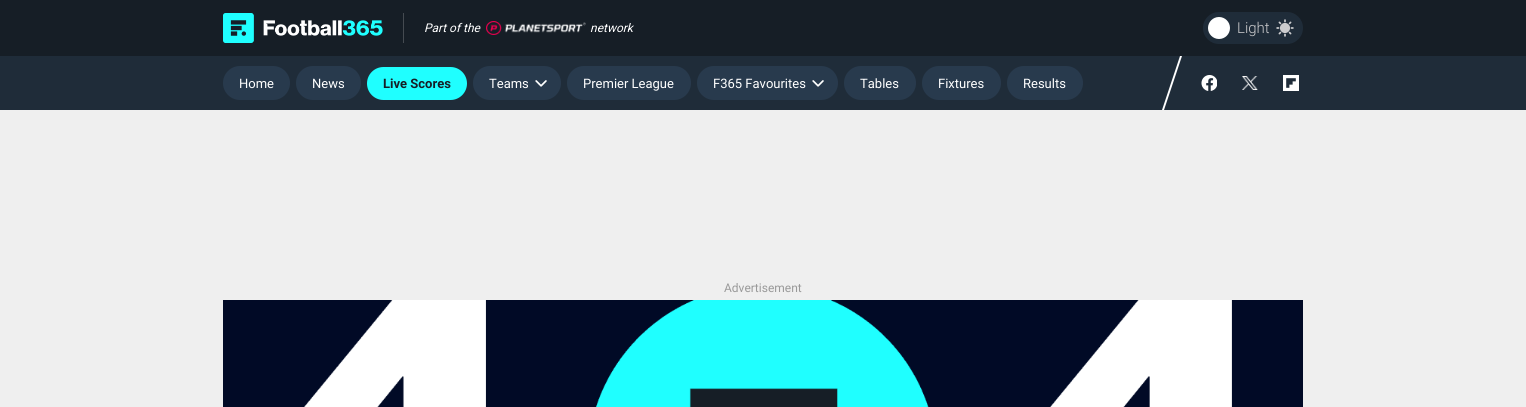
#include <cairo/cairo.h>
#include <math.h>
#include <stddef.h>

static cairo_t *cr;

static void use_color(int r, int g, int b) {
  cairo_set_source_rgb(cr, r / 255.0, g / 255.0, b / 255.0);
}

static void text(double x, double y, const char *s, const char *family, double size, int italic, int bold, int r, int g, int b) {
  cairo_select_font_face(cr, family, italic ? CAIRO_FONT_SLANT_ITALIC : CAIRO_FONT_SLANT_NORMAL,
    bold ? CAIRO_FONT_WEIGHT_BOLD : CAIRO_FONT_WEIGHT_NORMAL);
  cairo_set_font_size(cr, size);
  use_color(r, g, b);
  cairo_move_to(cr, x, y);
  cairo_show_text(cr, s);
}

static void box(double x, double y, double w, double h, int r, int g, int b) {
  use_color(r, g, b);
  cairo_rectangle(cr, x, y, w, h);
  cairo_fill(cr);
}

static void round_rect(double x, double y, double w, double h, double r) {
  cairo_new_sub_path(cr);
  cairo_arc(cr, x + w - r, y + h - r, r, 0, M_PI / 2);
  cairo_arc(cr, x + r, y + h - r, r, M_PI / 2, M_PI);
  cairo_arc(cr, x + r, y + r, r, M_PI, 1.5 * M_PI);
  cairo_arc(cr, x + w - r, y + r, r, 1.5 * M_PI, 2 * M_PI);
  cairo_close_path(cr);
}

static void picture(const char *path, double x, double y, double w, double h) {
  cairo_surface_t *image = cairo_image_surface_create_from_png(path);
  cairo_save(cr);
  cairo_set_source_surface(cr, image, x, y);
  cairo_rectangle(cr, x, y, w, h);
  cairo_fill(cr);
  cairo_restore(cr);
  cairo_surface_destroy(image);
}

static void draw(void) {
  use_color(239, 239, 239);
  cairo_paint(cr);
  box(0, 0, 1526, 56, 22, 30, 38);
  picture("img_01.png", 223, 13, 160, 30);
  box(403, 13, 1, 30, 69, 75, 81);
  picture("img_02.png", 486, 21, 100, 14);
  use_color(31, 44, 57);
  round_rect(1203, 12, 100, 32, 16);
  cairo_fill(cr);
  use_color(255, 255, 255);
  cairo_arc(cr, 1219, 28, 11, 0, 2 * M_PI);
  cairo_fill(cr);
  picture("img_03.png", 1276, 19, 18, 18);
  box(0, 56, 1526, 54, 31, 44, 57);
  use_color(40, 58, 77);
  round_rect(223, 66, 67, 34, 17);
  cairo_fill(cr);
  round_rect(296, 66, 65, 34, 17);
  cairo_fill(cr);
  use_color(31, 255, 255);
  round_rect(367, 67, 100, 33, 16.5);
  cairo_fill(cr);
  use_color(40, 58, 77);
  round_rect(473, 66, 88, 34, 17);
  cairo_fill(cr);
  picture("img_04.png", 535, 80, 12, 7);
  round_rect(567, 66, 124, 34, 17);
  cairo_fill(cr);
  round_rect(697, 66, 141, 34, 17);
  cairo_fill(cr);
  picture("img_04.png", 812, 80, 12, 7);
  round_rect(844, 66, 72, 34, 17);
  cairo_fill(cr);
  round_rect(922, 66, 79, 34, 17);
  cairo_fill(cr);
  round_rect(1007, 66, 76, 34, 17);
  cairo_fill(cr);
  use_color(255, 255, 255);
  cairo_new_path(cr);
  cairo_move_to(cr, 1180, 56);
  cairo_line_to(cr, 1182, 56);
  cairo_line_to(cr, 1164, 110);
  cairo_line_to(cr, 1162, 110);
  cairo_close_path(cr);
  cairo_fill(cr);
  picture("img_05.png", 1201, 75, 16, 16);
  picture("img_06.png", 1242, 76, 16, 14);
  picture("img_07.png", 1283, 75, 16, 16);
  box(223, 300, 1080, 107, 1, 10, 38);
  picture("img_08.png", 304, 300, 928, 107);
  text(424, 32, "Part of the", "Roboto", 12, 1, 0, 255, 255, 255);
  text(590, 32, "network", "Roboto", 12, 1, 0, 255, 255, 255);
  text(1237, 33, "Light", "Roboto Light", 15, 0, 0, 204, 204, 206);
  text(239, 88, "Home", "Roboto", 13, 0, 0, 255, 255, 255);
  text(312, 88, "News", "Roboto", 13, 0, 0, 255, 255, 255);
  text(383, 88, "Live Scores", "Roboto", 13, 0, 1, 22, 30, 38);
  text(489, 88, "Teams", "Roboto", 13, 0, 0, 255, 255, 255);
  text(583, 88, "Premier League", "Roboto", 13, 0, 0, 255, 255, 255);
  text(713, 88, "F365 Favourites", "Roboto", 13, 0, 0, 255, 255, 255);
  text(860, 88, "Tables", "Roboto", 13, 0, 0, 255, 255, 255);
  text(938, 88, "Fixtures", "Roboto", 13, 0, 0, 255, 255, 255);
  text(1023, 88, "Results", "Roboto", 13, 0, 0, 255, 255, 255);
  text(724, 292, "Advertisement", "Roboto", 12, 0, 0, 153, 153, 153);
}

int main(void) {
  cairo_surface_t *surface = cairo_image_surface_create(CAIRO_FORMAT_RGB24, 1526, 407);
  cr = cairo_create(surface);
  cairo_font_options_t *options = cairo_font_options_create();
  cairo_font_options_set_hint_metrics(options, CAIRO_HINT_METRICS_OFF);
  cairo_font_options_set_hint_style(options, CAIRO_HINT_STYLE_NONE);
  cairo_set_font_options(cr, options);
  cairo_set_miter_limit(cr, 4);
  draw();
  cairo_surface_write_to_png(surface, "out.png");
  cairo_font_options_destroy(options);
  cairo_destroy(cr);
  cairo_surface_destroy(surface);
  return 0;
}
